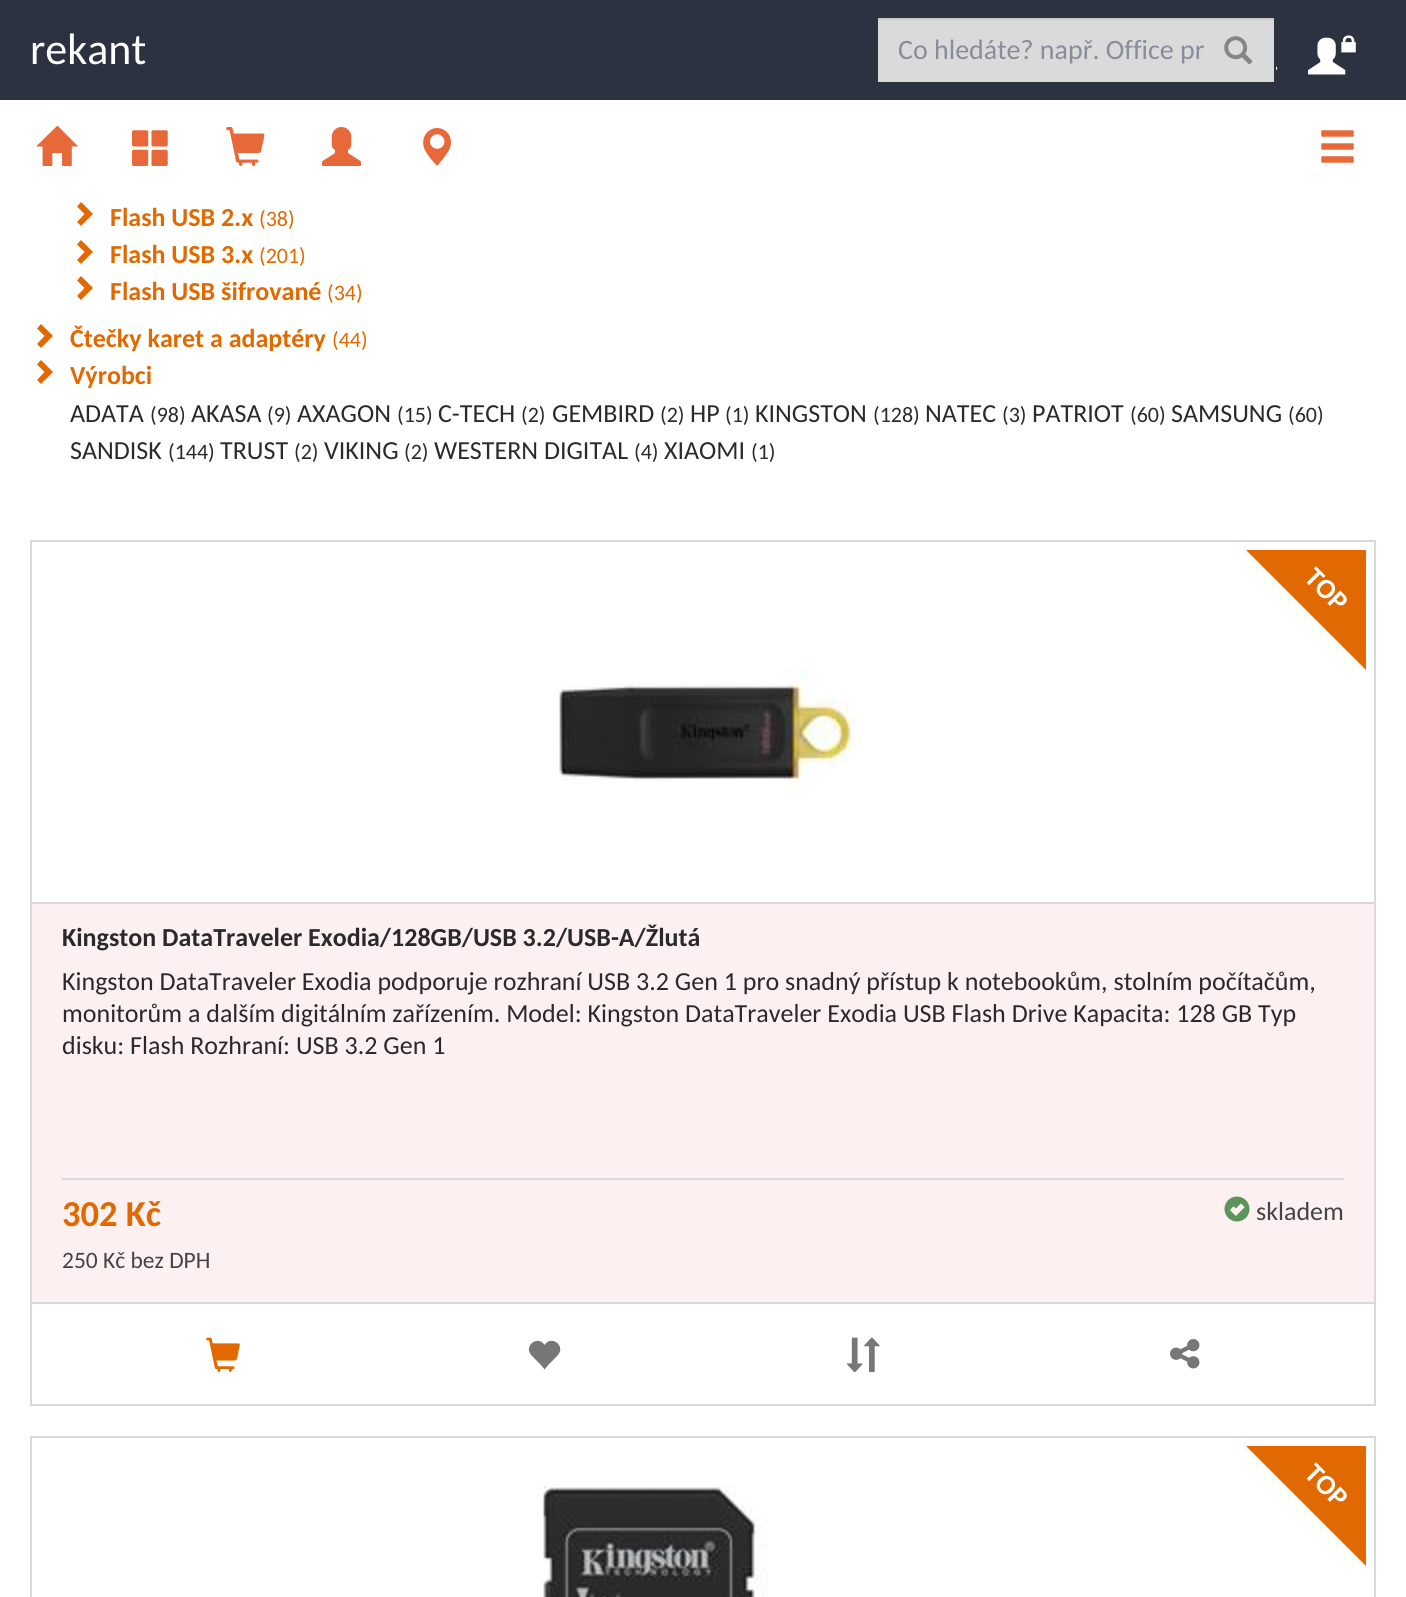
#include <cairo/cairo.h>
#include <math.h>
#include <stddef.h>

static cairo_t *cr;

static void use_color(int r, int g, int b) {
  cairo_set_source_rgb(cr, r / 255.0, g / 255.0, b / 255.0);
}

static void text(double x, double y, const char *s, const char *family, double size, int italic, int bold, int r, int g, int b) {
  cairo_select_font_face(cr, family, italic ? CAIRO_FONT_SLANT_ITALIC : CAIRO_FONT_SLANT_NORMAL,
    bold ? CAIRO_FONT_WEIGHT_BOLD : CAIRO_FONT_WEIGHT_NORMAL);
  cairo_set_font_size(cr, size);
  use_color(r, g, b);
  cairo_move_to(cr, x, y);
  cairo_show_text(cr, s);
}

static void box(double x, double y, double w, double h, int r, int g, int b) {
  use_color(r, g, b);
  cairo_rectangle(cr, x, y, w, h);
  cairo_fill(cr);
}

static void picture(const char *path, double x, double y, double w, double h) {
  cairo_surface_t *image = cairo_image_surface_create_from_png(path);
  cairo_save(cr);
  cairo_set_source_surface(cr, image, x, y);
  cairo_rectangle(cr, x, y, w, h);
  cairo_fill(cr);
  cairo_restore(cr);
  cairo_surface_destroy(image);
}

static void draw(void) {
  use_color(255, 255, 255);
  cairo_paint(cr);
  box(0, 0, 1406, 100, 44, 50, 63);
  box(878, 20, 396, 62, 219, 218, 218);
  box(878, 18, 396, 2, 203, 202, 202);
  picture("img_01.png", 1224, 36, 29, 29);
  picture("img_02.png", 1308, 35, 48, 40);
  picture("img_03.png", 1276, 66, 2, 5);
  picture("img_04.png", 36, 126, 42, 40);
  picture("img_05.png", 132, 130, 36, 36);
  picture("img_06.png", 226, 127, 39, 39);
  picture("img_07.png", 322, 127, 39, 39);
  picture("img_08.png", 423, 128, 28, 38);
  picture("img_09.png", 1321, 130, 33, 33);
  use_color(226, 105, 0);
  cairo_new_path(cr);
  cairo_move_to(cr, 93, 214);
  cairo_line_to(cr, 81, 226);
  cairo_line_to(cr, 77, 222);
  cairo_line_to(cr, 84.5, 214);
  cairo_line_to(cr, 77, 206.5);
  cairo_line_to(cr, 81, 202);
  cairo_close_path(cr);
  cairo_fill(cr);
  cairo_new_path(cr);
  cairo_move_to(cr, 93, 252);
  cairo_line_to(cr, 81, 264);
  cairo_line_to(cr, 77, 260);
  cairo_line_to(cr, 84.5, 252);
  cairo_line_to(cr, 77, 244.5);
  cairo_line_to(cr, 81, 240);
  cairo_close_path(cr);
  cairo_fill(cr);
  cairo_new_path(cr);
  cairo_move_to(cr, 93, 288);
  cairo_line_to(cr, 81, 300);
  cairo_line_to(cr, 77, 296);
  cairo_line_to(cr, 84.5, 288);
  cairo_line_to(cr, 77, 280.5);
  cairo_line_to(cr, 81, 276);
  cairo_close_path(cr);
  cairo_fill(cr);
  cairo_new_path(cr);
  cairo_move_to(cr, 53, 336);
  cairo_line_to(cr, 41, 348);
  cairo_line_to(cr, 37, 344);
  cairo_line_to(cr, 44.5, 336);
  cairo_line_to(cr, 37, 328.5);
  cairo_line_to(cr, 41, 324);
  cairo_close_path(cr);
  cairo_fill(cr);
  cairo_new_path(cr);
  cairo_move_to(cr, 53, 372);
  cairo_line_to(cr, 41, 384);
  cairo_line_to(cr, 37, 380);
  cairo_line_to(cr, 44.5, 372);
  cairo_line_to(cr, 37, 364.5);
  cairo_line_to(cr, 41, 360);
  cairo_close_path(cr);
  cairo_fill(cr);
  box(32, 904, 1342, 398, 252, 240, 240);
  cairo_rectangle(cr, 31, 541, 1344, 864);
  use_color(217, 217, 217);
  cairo_stroke(cr);
  use_color(226, 105, 0);
  cairo_new_path(cr);
  cairo_move_to(cr, 1366, 550);
  cairo_line_to(cr, 1366, 670);
  cairo_line_to(cr, 1246, 550);
  cairo_close_path(cr);
  cairo_fill(cr);
  picture("img_10.png", 559, 668, 303, 128);
  box(32, 902, 1342, 2, 217, 217, 217);
  box(62, 1178, 1282, 2, 217, 217, 217);
  picture("img_11.png", 1224, 1196, 26, 26);
  box(32, 1302, 1342, 2, 217, 217, 217);
  picture("img_12.png", 206, 1337, 34, 35);
  picture("img_13.png", 528, 1340, 33, 30);
  picture("img_14.png", 846, 1337, 34, 35);
  picture("img_15.png", 1170, 1339, 30, 30);
  cairo_rectangle(cr, 31, 1437, 1344, 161);
  cairo_stroke(cr);
  picture("img_16.png", 542, 1484, 226, 113);
  use_color(226, 105, 0);
  cairo_new_path(cr);
  cairo_move_to(cr, 1366, 1446);
  cairo_line_to(cr, 1366, 1566);
  cairo_line_to(cr, 1246, 1446);
  cairo_close_path(cr);
  cairo_fill(cr);
  text(30, 64, "rekant", "Carlito", 44, 0, 0, 255, 255, 255);
  text(898, 59, "Co hledáte? např. Office pr", "Carlito", 28, 0, 0, 136, 141, 155);
  text(110, 226, "Flash USB 2.x", "Carlito", 26, 0, 1, 226, 105, 0);
  text(259, 226, "(38)", "Carlito", 22, 0, 0, 226, 105, 0);
  text(110, 263, "Flash USB 3.x", "Carlito", 26, 0, 1, 226, 105, 0);
  text(259, 263, "(201)", "Carlito", 22, 0, 0, 226, 105, 0);
  text(110, 300, "Flash USB šifrované", "Carlito", 26, 0, 1, 226, 105, 0);
  text(327, 300, "(34)", "Carlito", 22, 0, 0, 226, 105, 0);
  text(70, 347, "Čtečky karet a adaptéry", "Carlito", 26, 0, 1, 226, 105, 0);
  text(332, 347, "(44)", "Carlito", 22, 0, 0, 226, 105, 0);
  text(70, 384, "Výrobci", "Carlito", 26, 0, 1, 226, 105, 0);
  text(70, 422, "ADATA", "Carlito", 26, 0, 0, 42, 42, 42);
  text(150, 422, "(98)", "Carlito", 22, 0, 0, 42, 42, 42);
  text(191, 422, "AKASA", "Carlito", 26, 0, 0, 42, 42, 42);
  text(267, 422, "(9)", "Carlito", 22, 0, 0, 42, 42, 42);
  text(297, 422, "AXAGON", "Carlito", 26, 0, 0, 42, 42, 42);
  text(397, 422, "(15)", "Carlito", 22, 0, 0, 42, 42, 42);
  text(438, 422, "C-TECH", "Carlito", 26, 0, 0, 42, 42, 42);
  text(521, 422, "(2)", "Carlito", 22, 0, 0, 42, 42, 42);
  text(552, 422, "GEMBIRD", "Carlito", 26, 0, 0, 42, 42, 42);
  text(660, 422, "(2)", "Carlito", 22, 0, 0, 42, 42, 42);
  text(690, 422, "HP", "Carlito", 26, 0, 0, 42, 42, 42);
  text(725, 422, "(1)", "Carlito", 22, 0, 0, 42, 42, 42);
  text(755, 422, "KINGSTON", "Carlito", 26, 0, 0, 42, 42, 42);
  text(873, 422, "(128)", "Carlito", 22, 0, 0, 42, 42, 42);
  text(925, 422, "NATEC", "Carlito", 26, 0, 0, 42, 42, 42);
  text(1002, 422, "(3)", "Carlito", 22, 0, 0, 42, 42, 42);
  text(1032, 422, "PATRIOT", "Carlito", 26, 0, 0, 42, 42, 42);
  text(1130, 422, "(60)", "Carlito", 22, 0, 0, 42, 42, 42);
  text(1171, 422, "SAMSUNG", "Carlito", 26, 0, 0, 42, 42, 42);
  text(1288, 422, "(60)", "Carlito", 22, 0, 0, 42, 42, 42);
  text(70, 459, "SANDISK", "Carlito", 26, 0, 0, 42, 42, 42);
  text(168, 459, "(144)", "Carlito", 22, 0, 0, 42, 42, 42);
  text(220, 459, "TRUST", "Carlito", 26, 0, 0, 42, 42, 42);
  text(294, 459, "(2)", "Carlito", 22, 0, 0, 42, 42, 42);
  text(324, 459, "VIKING", "Carlito", 26, 0, 0, 42, 42, 42);
  text(404, 459, "(2)", "Carlito", 22, 0, 0, 42, 42, 42);
  text(434, 459, "WESTERN DIGITAL", "Carlito", 26, 0, 0, 42, 42, 42);
  text(634, 459, "(4)", "Carlito", 22, 0, 0, 42, 42, 42);
  text(664, 459, "XIAOMI", "Carlito", 26, 0, 0, 42, 42, 42);
  text(751, 459, "(1)", "Carlito", 22, 0, 0, 42, 42, 42);
  cairo_save(cr);
  cairo_translate(cr, 1303, 579);
  cairo_rotate(cr, 45 * M_PI / 180);
  text(0, 0, "TOP", "Carlito", 28, 0, 1, 255, 255, 255);
  cairo_restore(cr);
  text(62, 946, "Kingston DataTraveler Exodia/128GB/USB 3.2/USB-A/Žlutá", "Carlito", 26, 0, 1, 42, 42, 42);
  text(62, 990, "Kingston DataTraveler Exodia podporuje rozhraní USB 3.2 Gen 1 pro snadný přístup k notebookům, stolním počítačům,", "Carlito", 26, 0, 0, 42, 42, 42);
  text(62, 1022, "monitorům a dalším digitálním zařízením. Model: Kingston DataTraveler Exodia USB Flash Drive Kapacita: 128 GB Typ", "Carlito", 26, 0, 0, 42, 42, 42);
  text(62, 1054, "disku: Flash Rozhraní: USB 3.2 Gen 1", "Carlito", 26, 0, 0, 42, 42, 42);
  text(62, 1226, "302 Kč", "Carlito", 36.5, 0, 1, 226, 105, 0);
  text(62, 1268, "250 Kč bez DPH", "Carlito", 23.5, 0, 0, 68, 68, 68);
  text(1256, 1220, "skladem", "Carlito", 26, 0, 0, 68, 68, 68);
  cairo_save(cr);
  cairo_translate(cr, 1303, 1475);
  cairo_rotate(cr, 45 * M_PI / 180);
  text(0, 0, "TOP", "Carlito", 28, 0, 1, 255, 255, 255);
  cairo_restore(cr);
}

int main(void) {
  cairo_surface_t *surface = cairo_image_surface_create(CAIRO_FORMAT_RGB24, 1406, 1597);
  cr = cairo_create(surface);
  cairo_font_options_t *options = cairo_font_options_create();
  cairo_font_options_set_hint_metrics(options, CAIRO_HINT_METRICS_OFF);
  cairo_font_options_set_hint_style(options, CAIRO_HINT_STYLE_NONE);
  cairo_set_font_options(cr, options);
  cairo_set_miter_limit(cr, 4);
  draw();
  cairo_surface_write_to_png(surface, "out.png");
  cairo_font_options_destroy(options);
  cairo_destroy(cr);
  cairo_surface_destroy(surface);
  return 0;
}
